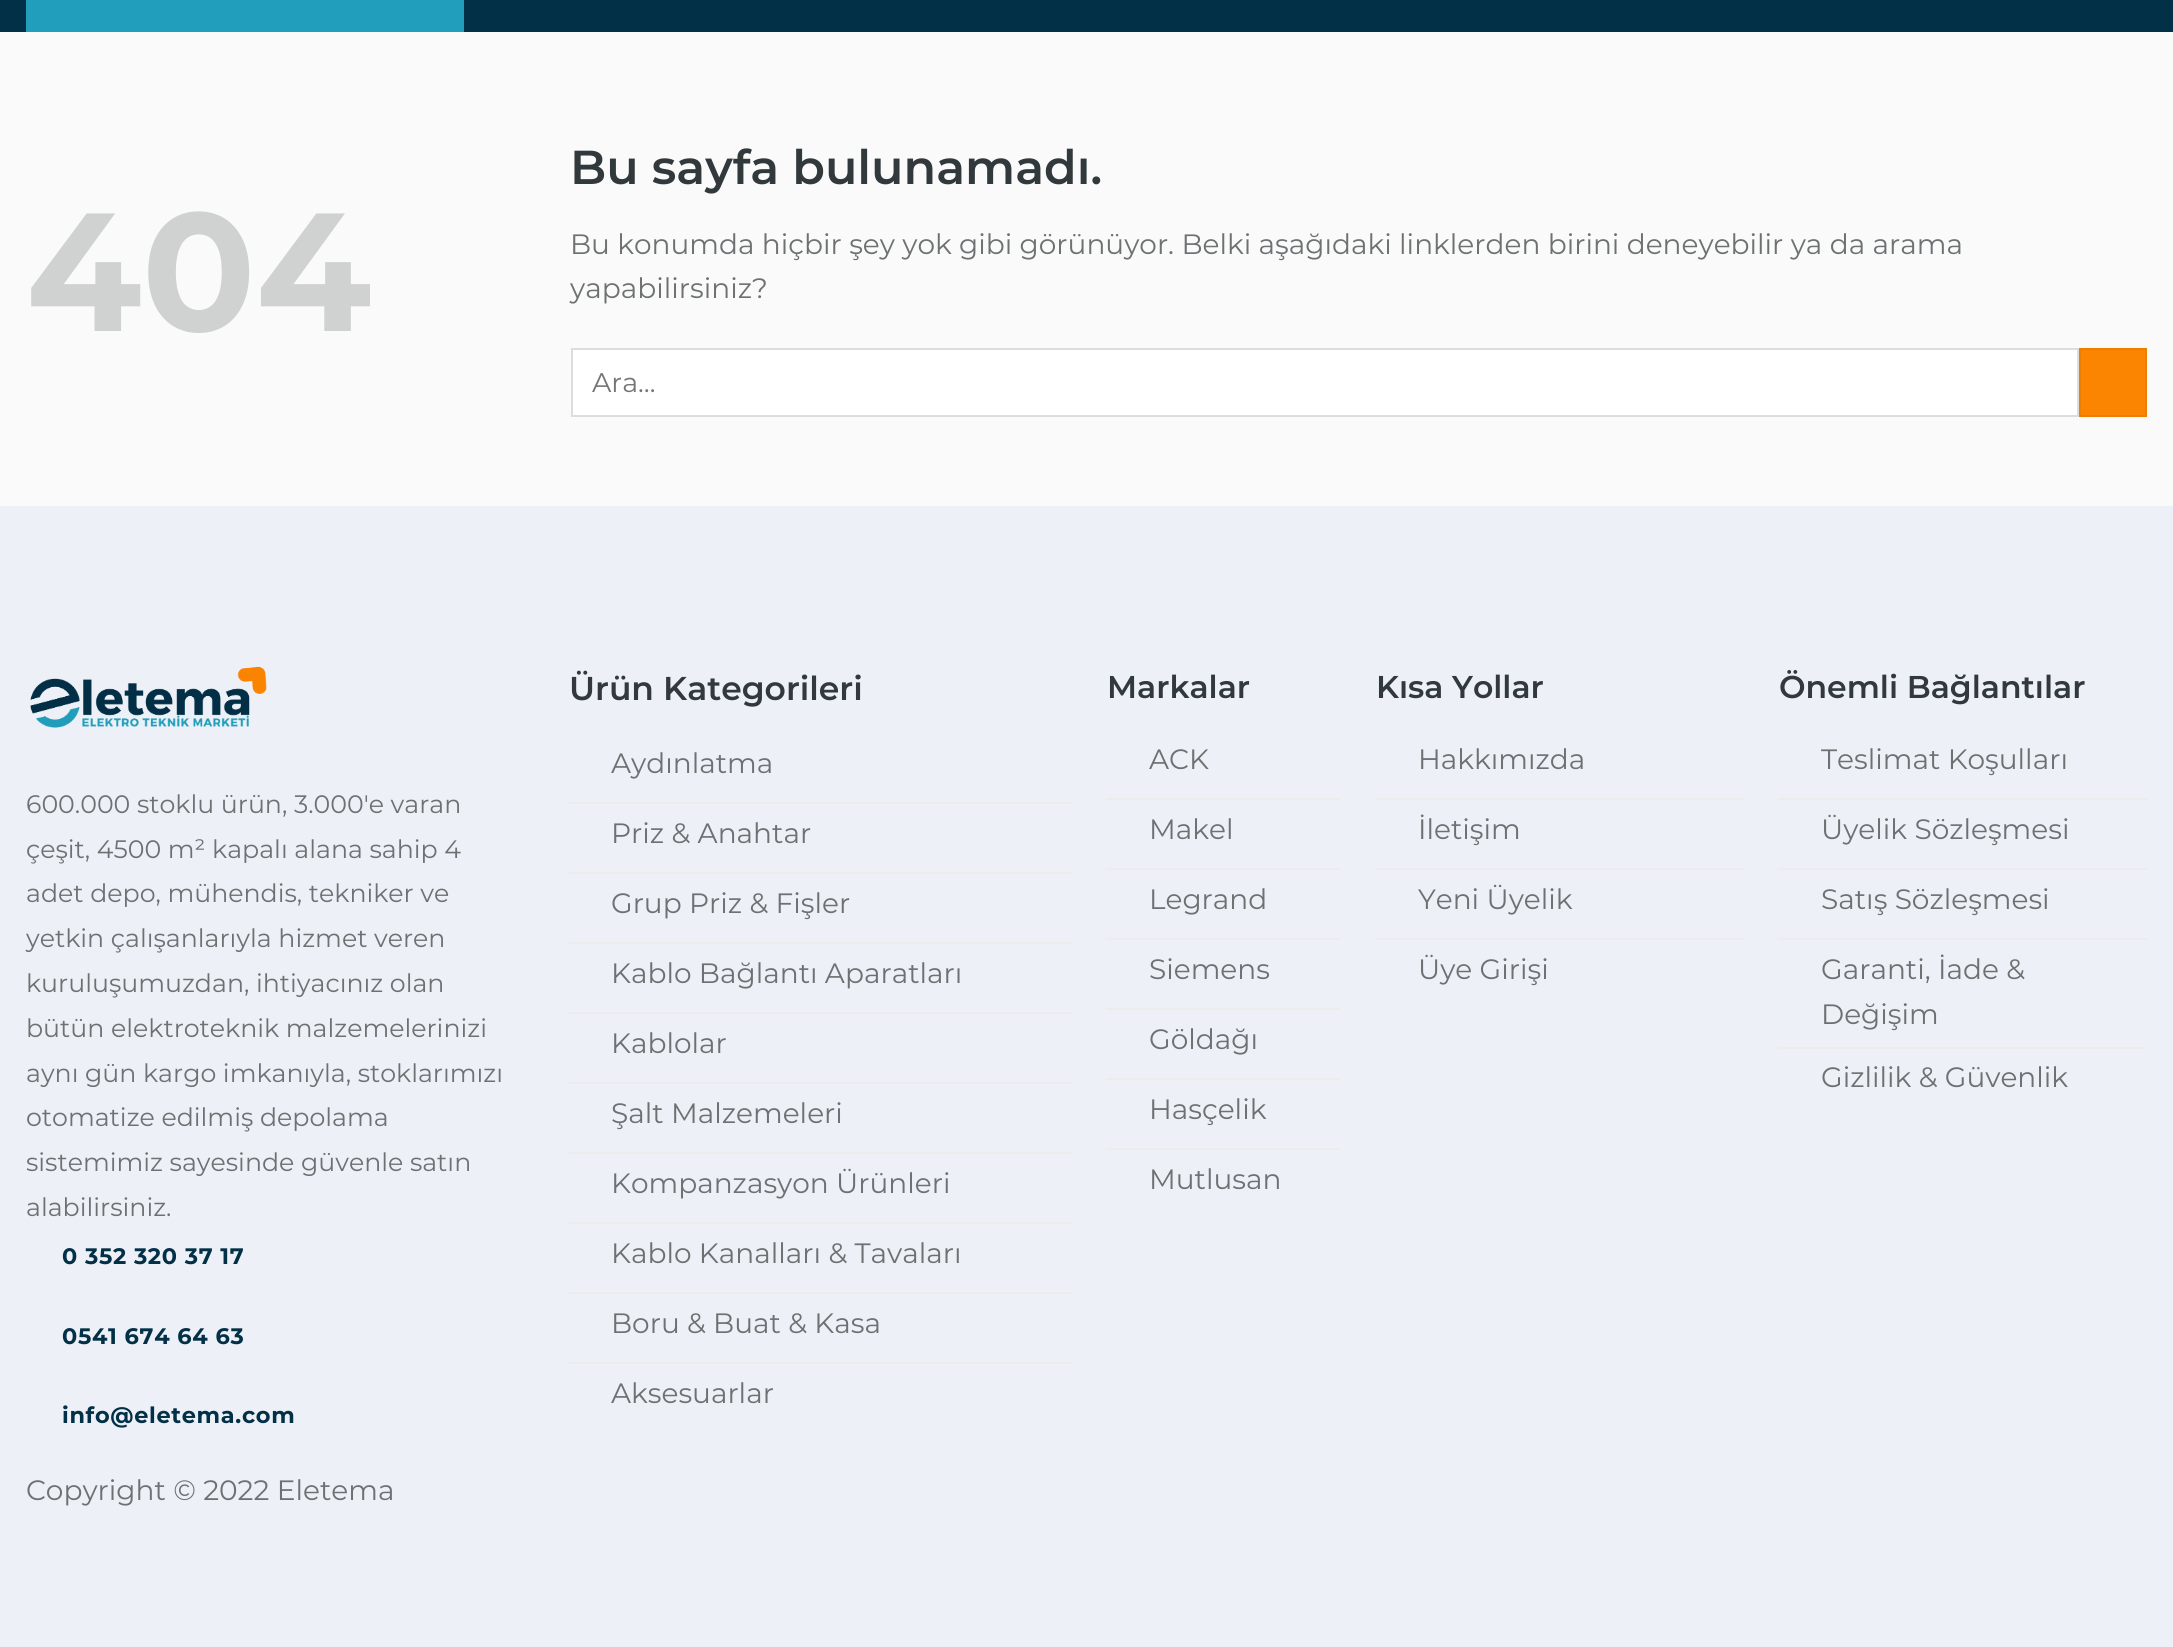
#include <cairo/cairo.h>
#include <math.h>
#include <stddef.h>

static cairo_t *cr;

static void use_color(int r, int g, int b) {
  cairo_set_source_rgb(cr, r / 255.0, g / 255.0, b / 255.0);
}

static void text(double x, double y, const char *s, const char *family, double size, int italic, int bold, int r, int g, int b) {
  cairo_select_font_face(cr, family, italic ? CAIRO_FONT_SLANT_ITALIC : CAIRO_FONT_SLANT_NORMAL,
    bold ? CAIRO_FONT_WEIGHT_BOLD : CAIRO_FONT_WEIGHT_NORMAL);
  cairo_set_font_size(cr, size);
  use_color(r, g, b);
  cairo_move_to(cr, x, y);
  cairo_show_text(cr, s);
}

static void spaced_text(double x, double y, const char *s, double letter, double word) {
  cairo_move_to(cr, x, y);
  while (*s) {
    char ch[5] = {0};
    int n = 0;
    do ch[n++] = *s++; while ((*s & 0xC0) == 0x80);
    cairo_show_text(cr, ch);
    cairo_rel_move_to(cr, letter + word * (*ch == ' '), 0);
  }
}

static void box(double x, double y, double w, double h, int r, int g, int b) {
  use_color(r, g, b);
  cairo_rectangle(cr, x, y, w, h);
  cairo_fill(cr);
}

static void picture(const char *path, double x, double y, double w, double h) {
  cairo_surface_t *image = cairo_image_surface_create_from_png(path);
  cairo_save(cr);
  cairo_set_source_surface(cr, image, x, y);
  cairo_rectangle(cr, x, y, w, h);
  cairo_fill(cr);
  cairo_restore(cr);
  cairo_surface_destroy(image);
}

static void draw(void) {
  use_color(250, 250, 250);
  cairo_paint(cr);
  box(0, 0, 2173, 32, 2, 48, 71);
  box(26, 0, 438, 32, 33, 158, 188);
  use_color(255, 255, 255);
  cairo_rectangle(cr, 572, 349, 1506, 67);
  cairo_fill_preserve(cr);
  use_color(221, 221, 221);
  cairo_stroke(cr);
  use_color(251, 133, 0);
  cairo_rectangle(cr, 2080, 349, 66, 67);
  cairo_fill_preserve(cr);
  use_color(238, 126, 0);
  cairo_stroke(cr);
  box(0, 506, 2173, 1141, 237, 241, 247);
  picture("img_01.png", 30, 666, 237, 62);
  box(569, 802, 504, 2, 236, 236, 236);
  box(569, 872, 504, 2, 236, 236, 236);
  box(569, 942, 504, 2, 236, 236, 236);
  box(569, 1012, 504, 2, 236, 236, 236);
  box(569, 1082, 504, 2, 236, 236, 236);
  box(569, 1152, 504, 2, 236, 236, 236);
  box(569, 1222, 504, 2, 236, 236, 236);
  box(569, 1292, 504, 2, 236, 236, 236);
  box(569, 1362, 504, 2, 236, 236, 236);
  box(1106, 798, 235, 2, 236, 236, 236);
  box(1106, 868, 235, 2, 236, 236, 236);
  box(1106, 938, 235, 2, 236, 236, 236);
  box(1106, 1008, 235, 2, 236, 236, 236);
  box(1106, 1078, 235, 2, 236, 236, 236);
  box(1106, 1148, 235, 2, 236, 236, 236);
  box(1376, 798, 369, 2, 236, 236, 236);
  box(1376, 868, 369, 2, 236, 236, 236);
  box(1376, 938, 369, 2, 236, 236, 236);
  box(1778, 798, 369, 2, 236, 236, 236);
  box(1778, 868, 369, 2, 236, 236, 236);
  box(1778, 938, 369, 2, 236, 236, 236);
  box(1778, 1047, 369, 2, 236, 236, 236);
  text(26, 331, "404", "Montserrat", 168, 0, 1, 208, 209, 209);
  text(570, 184, "Bu sayfa bulunamadı.", "Montserrat SemiBold", 47.6, 0, 0, 49, 57, 60);
  text(570, 254, "Bu konumda hiçbir şey yok gibi görünüyor. Belki aşağıdaki linklerden birini deneyebilir ya da arama", "Montserrat", 28, 0, 0, 109, 113, 114);
  text(570, 298, "yapabilirsiniz?", "Montserrat", 28, 0, 0, 109, 113, 114);
  text(592, 392, "Ara…", "Montserrat", 27, 0, 0, 117, 117, 117);
  text(26, 813, "600.000 stoklu ürün, 3.000'e varan", "Montserrat", 25.25, 0, 0, 109, 113, 114);
  text(26, 858, "çeşit, 4500 m² kapalı alana sahip 4", "Montserrat", 25.25, 0, 0, 109, 113, 114);
  text(26, 902, "adet depo, mühendis, tekniker ve", "Montserrat", 25.25, 0, 0, 109, 113, 114);
  text(26, 947, "yetkin çalışanlarıyla hizmet veren", "Montserrat", 25.25, 0, 0, 109, 113, 114);
  text(26, 992, "kuruluşumuzdan, ihtiyacınız olan", "Montserrat", 25.25, 0, 0, 109, 113, 114);
  text(26, 1037, "bütün elektroteknik malzemelerinizi", "Montserrat", 25.25, 0, 0, 109, 113, 114);
  text(26, 1082, "aynı gün kargo imkanıyla, stoklarımızı", "Montserrat", 25.25, 0, 0, 109, 113, 114);
  text(26, 1126, "otomatize edilmiş depolama", "Montserrat", 25.25, 0, 0, 109, 113, 114);
  text(26, 1171, "sistemimiz sayesinde güvenle satın", "Montserrat", 25.25, 0, 0, 109, 113, 114);
  text(26, 1216, "alabilirsiniz.", "Montserrat", 25.25, 0, 0, 109, 113, 114);
  cairo_select_font_face(cr, "Montserrat", CAIRO_FONT_SLANT_NORMAL, CAIRO_FONT_WEIGHT_BOLD);
  cairo_set_font_size(cr, 22.4);
  use_color(2, 48, 71);
  spaced_text(62, 1264, "0 352 320 37 17", 0.7, 0);
  spaced_text(62, 1344, "0541 674 64 63", 0.7, 0);
  spaced_text(62, 1423, "info@eletema.com", 0.7, 0);
  text(26, 1500, "Copyright © 2022 Eletema", "Montserrat", 28, 0, 0, 109, 113, 114);
  text(569, 700, "Ürün Kategorileri", "Montserrat SemiBold", 33, 0, 0, 49, 57, 60);
  text(611, 773, "Aydınlatma", "Montserrat", 28, 0, 0, 109, 113, 114);
  text(611, 843, "Priz & Anahtar", "Montserrat", 28, 0, 0, 109, 113, 114);
  text(611, 913, "Grup Priz & Fişler", "Montserrat", 28, 0, 0, 109, 113, 114);
  text(611, 983, "Kablo Bağlantı Aparatları", "Montserrat", 28, 0, 0, 109, 113, 114);
  text(611, 1053, "Kablolar", "Montserrat", 28, 0, 0, 109, 113, 114);
  text(611, 1123, "Şalt Malzemeleri", "Montserrat", 28, 0, 0, 109, 113, 114);
  text(611, 1193, "Kompanzasyon Ürünleri", "Montserrat", 28, 0, 0, 109, 113, 114);
  text(611, 1263, "Kablo Kanalları & Tavaları", "Montserrat", 28, 0, 0, 109, 113, 114);
  text(611, 1333, "Boru & Buat & Kasa", "Montserrat", 28, 0, 0, 109, 113, 114);
  text(611, 1403, "Aksesuarlar", "Montserrat", 28, 0, 0, 109, 113, 114);
  text(1107, 698, "Markalar", "Montserrat SemiBold", 31.5, 0, 0, 49, 57, 60);
  text(1149, 769, "ACK", "Montserrat", 28, 0, 0, 109, 113, 114);
  text(1149, 839, "Makel", "Montserrat", 28, 0, 0, 109, 113, 114);
  text(1149, 909, "Legrand", "Montserrat", 28, 0, 0, 109, 113, 114);
  text(1149, 979, "Siemens", "Montserrat", 28, 0, 0, 109, 113, 114);
  text(1149, 1049, "Göldağı", "Montserrat", 28, 0, 0, 109, 113, 114);
  text(1149, 1119, "Hasçelik", "Montserrat", 28, 0, 0, 109, 113, 114);
  text(1149, 1189, "Mutlusan", "Montserrat", 28, 0, 0, 109, 113, 114);
  text(1376, 698, "Kısa Yollar", "Montserrat SemiBold", 31.5, 0, 0, 49, 57, 60);
  text(1418, 769, "Hakkımızda", "Montserrat", 28, 0, 0, 109, 113, 114);
  text(1418, 839, "İletişim", "Montserrat", 28, 0, 0, 109, 113, 114);
  text(1418, 909, "Yeni Üyelik", "Montserrat", 28, 0, 0, 109, 113, 114);
  text(1418, 979, "Üye Girişi", "Montserrat", 28, 0, 0, 109, 113, 114);
  text(1779, 698, "Önemli Bağlantılar", "Montserrat SemiBold", 31.5, 0, 0, 49, 57, 60);
  text(1821, 769, "Teslimat Koşulları", "Montserrat", 28, 0, 0, 109, 113, 114);
  text(1821, 839, "Üyelik Sözleşmesi", "Montserrat", 28, 0, 0, 109, 113, 114);
  text(1821, 909, "Satış Sözleşmesi", "Montserrat", 28, 0, 0, 109, 113, 114);
  text(1821, 979, "Garanti, İade &", "Montserrat", 28, 0, 0, 109, 113, 114);
  text(1821, 1024, "Değişim", "Montserrat", 28, 0, 0, 109, 113, 114);
  text(1821, 1087, "Gizlilik & Güvenlik", "Montserrat", 28, 0, 0, 109, 113, 114);
}

int main(void) {
  cairo_surface_t *surface = cairo_image_surface_create(CAIRO_FORMAT_RGB24, 2173, 1647);
  cr = cairo_create(surface);
  cairo_font_options_t *options = cairo_font_options_create();
  cairo_font_options_set_hint_metrics(options, CAIRO_HINT_METRICS_OFF);
  cairo_font_options_set_hint_style(options, CAIRO_HINT_STYLE_NONE);
  cairo_set_font_options(cr, options);
  cairo_set_miter_limit(cr, 4);
  draw();
  cairo_surface_write_to_png(surface, "out.png");
  cairo_font_options_destroy(options);
  cairo_destroy(cr);
  cairo_surface_destroy(surface);
  return 0;
}
